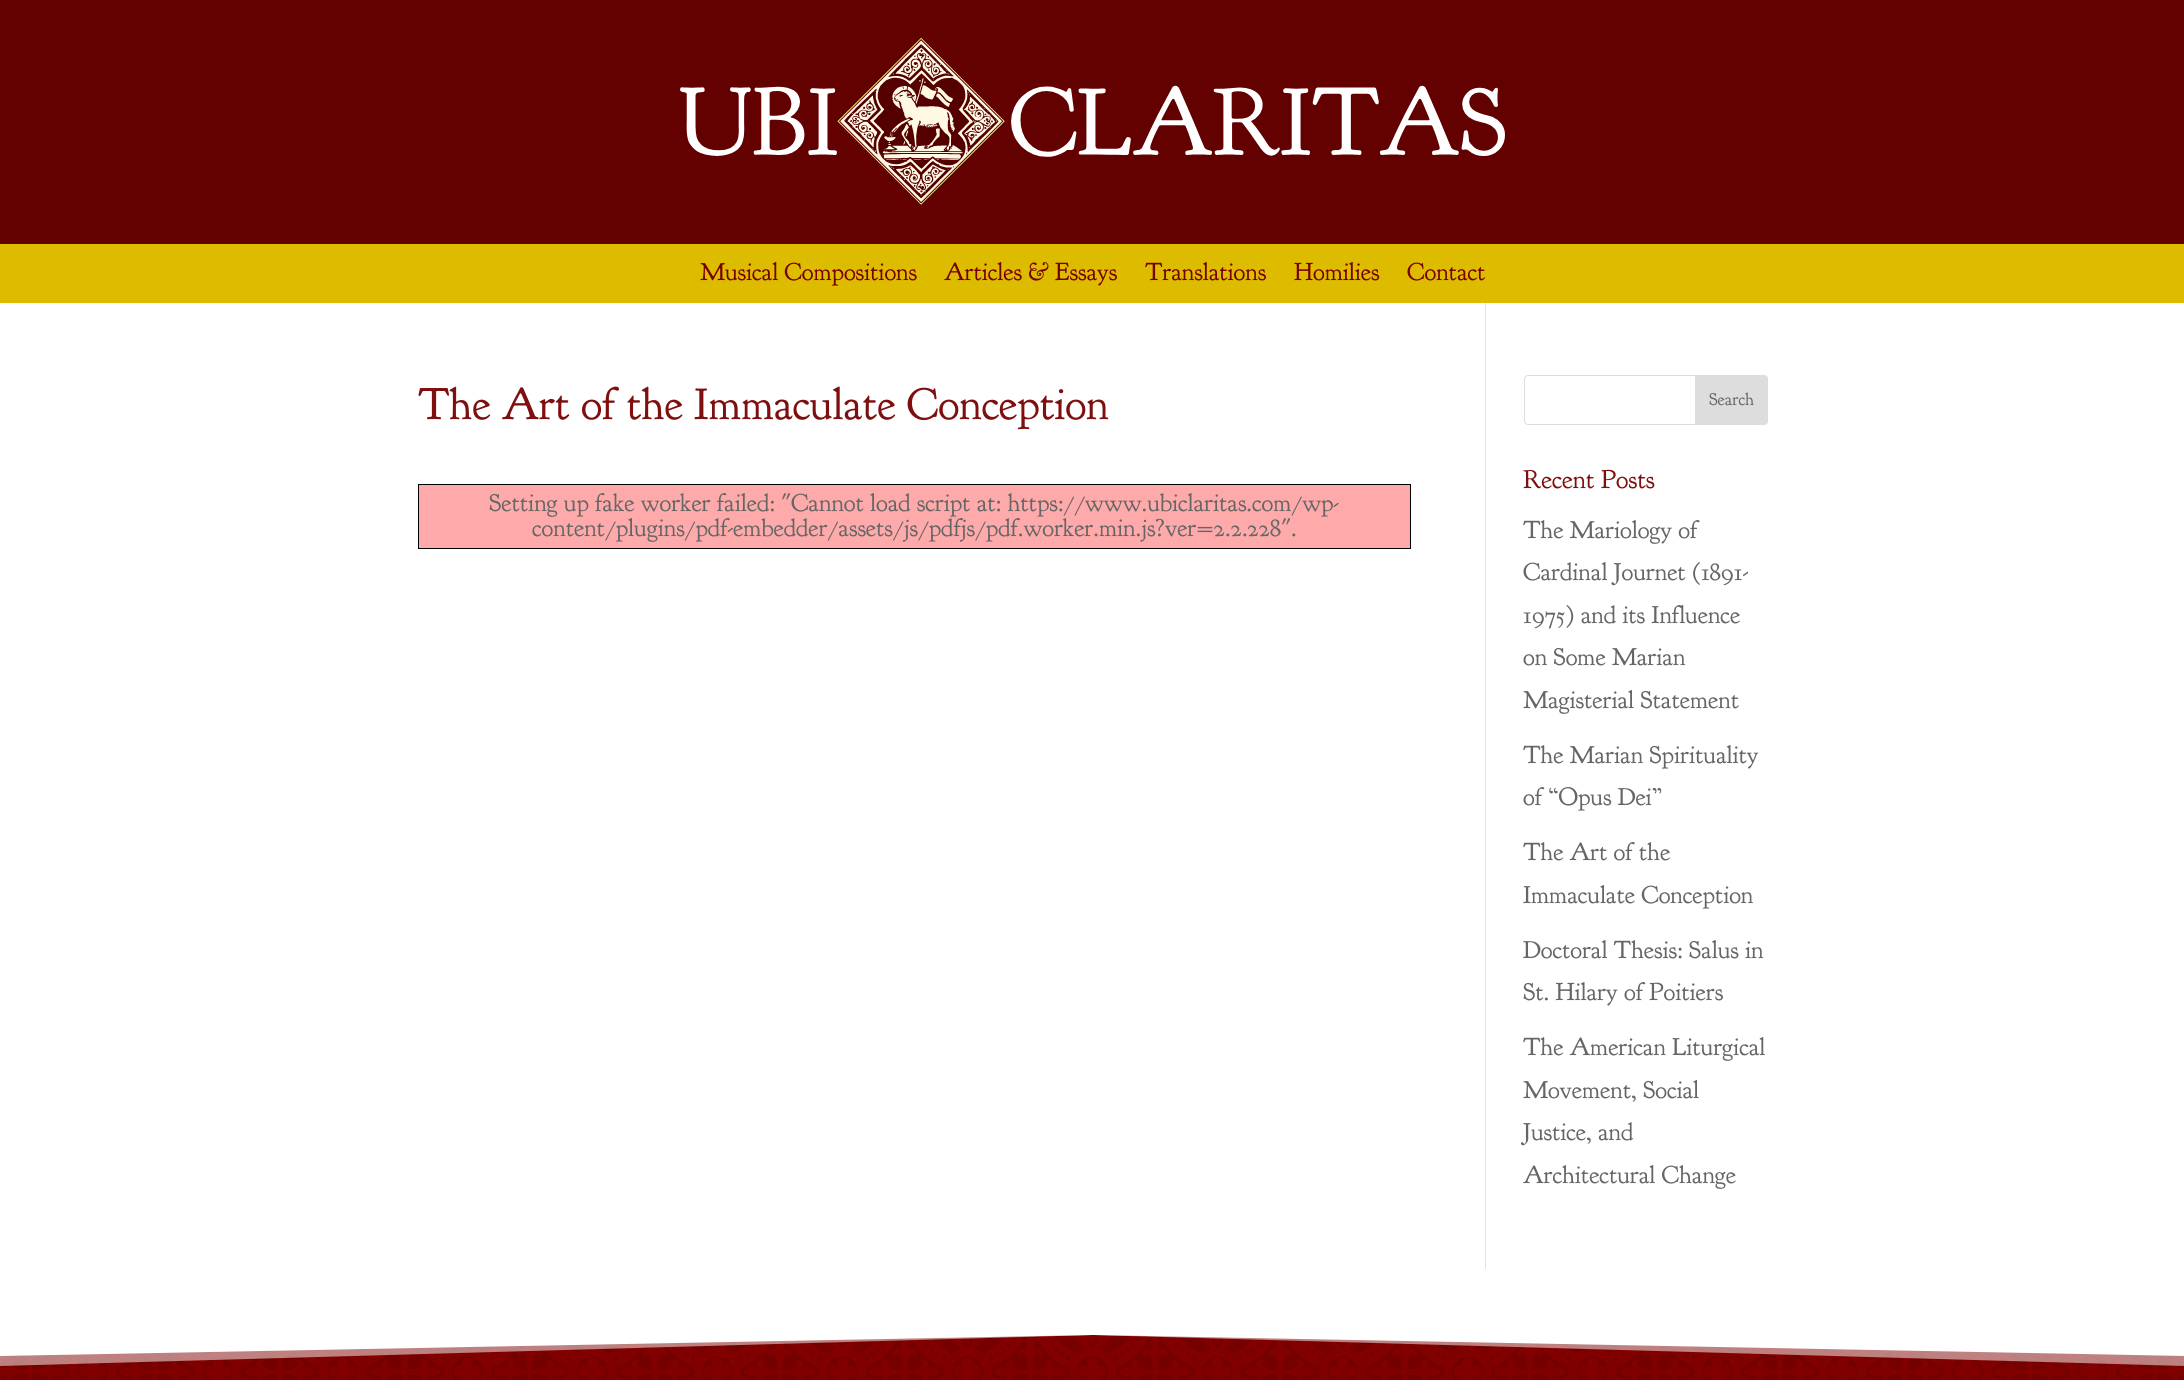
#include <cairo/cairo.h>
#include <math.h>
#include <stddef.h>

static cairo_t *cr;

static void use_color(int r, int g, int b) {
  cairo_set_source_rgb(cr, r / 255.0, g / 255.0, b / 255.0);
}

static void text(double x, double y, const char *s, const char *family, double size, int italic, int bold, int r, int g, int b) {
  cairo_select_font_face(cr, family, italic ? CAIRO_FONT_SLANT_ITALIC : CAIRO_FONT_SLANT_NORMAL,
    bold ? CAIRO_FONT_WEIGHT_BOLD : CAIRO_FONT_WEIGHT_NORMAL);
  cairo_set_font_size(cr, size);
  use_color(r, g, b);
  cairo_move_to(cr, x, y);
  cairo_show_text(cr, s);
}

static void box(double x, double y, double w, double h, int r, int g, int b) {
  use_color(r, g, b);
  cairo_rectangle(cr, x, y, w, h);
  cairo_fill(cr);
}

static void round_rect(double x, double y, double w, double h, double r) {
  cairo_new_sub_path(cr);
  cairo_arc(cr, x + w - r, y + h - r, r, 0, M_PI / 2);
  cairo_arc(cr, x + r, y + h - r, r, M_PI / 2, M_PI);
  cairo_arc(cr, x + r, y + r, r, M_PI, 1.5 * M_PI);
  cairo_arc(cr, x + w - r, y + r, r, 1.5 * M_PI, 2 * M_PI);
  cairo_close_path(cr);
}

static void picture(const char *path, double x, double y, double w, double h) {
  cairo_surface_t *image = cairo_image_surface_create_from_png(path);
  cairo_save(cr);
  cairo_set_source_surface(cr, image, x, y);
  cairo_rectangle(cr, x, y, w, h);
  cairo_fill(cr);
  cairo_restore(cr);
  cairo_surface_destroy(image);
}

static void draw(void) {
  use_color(255, 255, 255);
  cairo_paint(cr);
  box(0, 0, 2184, 244, 99, 0, 0);
  picture("img_01.png", 680, 36, 825, 170);
  box(0, 244, 2184, 59, 221, 188, 0);
  box(1485, 303, 1, 966, 226, 226, 226);
  cairo_rectangle(cr, 418.5, 484.5, 992, 64);
  use_color(0, 0, 0);
  cairo_set_line_width(cr, 1);
  cairo_stroke(cr);
  box(419, 485, 991, 63, 255, 170, 170);
  round_rect(1524.5, 375.5, 243, 49, 3.5);
  use_color(221, 221, 221);
  cairo_stroke(cr);
  cairo_new_path(cr);
  cairo_move_to(cr, 1695.5, 375.5);
  cairo_line_to(cr, 1764, 375.5);
  cairo_curve_to(cr, 1766, 375.5, 1767.5, 377, 1767.5, 379);
  cairo_line_to(cr, 1767.5, 421);
  cairo_curve_to(cr, 1767.5, 423, 1766, 424.5, 1764, 424.5);
  cairo_line_to(cr, 1695.5, 424.5);
  cairo_close_path(cr);
  cairo_fill_preserve(cr);
  cairo_stroke(cr);
  picture("img_02.png", 0, 1335, 2184, 45);
  cairo_save(cr);
  cairo_rectangle(cr, 0, 1335, 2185, 31);
  cairo_clip(cr);
  cairo_set_source_rgba(cr, 1, 1, 1, 0.5);
  cairo_new_path(cr);
  cairo_move_to(cr, 1092, 1335);
  cairo_line_to(cr, 0, 1366);
  cairo_line_to(cr, 0, 1334);
  cairo_line_to(cr, 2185, 1334);
  cairo_line_to(cr, 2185, 1366);
  cairo_close_path(cr);
  cairo_fill(cr);
  use_color(255, 255, 255);
  cairo_new_path(cr);
  cairo_move_to(cr, 1092, 1335);
  cairo_line_to(cr, 0, 1356);
  cairo_line_to(cr, 0, 1334);
  cairo_line_to(cr, 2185, 1334);
  cairo_line_to(cr, 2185, 1356);
  cairo_close_path(cr);
  cairo_fill(cr);
  cairo_restore(cr);
  text(700, 280, "Musical Compositions", "Goudy Bookletter 1911", 25, 0, 0, 119, 0, 0);
  text(944, 280, "Articles & Essays", "Goudy Bookletter 1911", 25, 0, 0, 119, 0, 0);
  text(1145, 280, "Translations", "Goudy Bookletter 1911", 25, 0, 0, 119, 0, 0);
  text(1294, 280, "Homilies", "Goudy Bookletter 1911", 25, 0, 0, 119, 0, 0);
  text(1407, 280, "Contact", "Goudy Bookletter 1911", 25, 0, 0, 119, 0, 0);
  text(418, 419, "The Art of the Immaculate Conception", "Goudy Bookletter 1911", 45, 0, 0, 127, 15, 15);
  text(489, 511, "Setting up fake worker failed: \"Cannot load script at: https://www.ubiclaritas.com/wp-", "Goudy Bookletter 1911", 25, 0, 0, 102, 102, 102);
  text(532, 536, "content/plugins/pdf-embedder/assets/js/pdfjs/pdf.worker.min.js?ver=2.2.228\".", "Goudy Bookletter 1911", 25, 0, 0, 102, 102, 102);
  text(1709, 405, "Search", "Goudy Bookletter 1911", 17.5, 0, 0, 102, 102, 102);
  text(1523, 488, "Recent Posts", "Goudy Bookletter 1911", 26.25, 0, 0, 127, 15, 15);
  text(1523, 538, "The Mariology of", "Goudy Bookletter 1911", 25, 0, 0, 102, 102, 102);
  text(1523, 580, "Cardinal Journet (1891-", "Goudy Bookletter 1911", 25, 0, 0, 102, 102, 102);
  text(1523, 623, "1975) and its Influence", "Goudy Bookletter 1911", 25, 0, 0, 102, 102, 102);
  text(1523, 665, "on Some Marian", "Goudy Bookletter 1911", 25, 0, 0, 102, 102, 102);
  text(1523, 708, "Magisterial Statement", "Goudy Bookletter 1911", 25, 0, 0, 102, 102, 102);
  text(1523, 763, "The Marian Spirituality", "Goudy Bookletter 1911", 25, 0, 0, 102, 102, 102);
  text(1523, 805, "of “Opus Dei”", "Goudy Bookletter 1911", 25, 0, 0, 102, 102, 102);
  text(1523, 860, "The Art of the", "Goudy Bookletter 1911", 25, 0, 0, 102, 102, 102);
  text(1523, 903, "Immaculate Conception", "Goudy Bookletter 1911", 25, 0, 0, 102, 102, 102);
  text(1523, 958, "Doctoral Thesis: Salus in", "Goudy Bookletter 1911", 25, 0, 0, 102, 102, 102);
  text(1523, 1000, "St. Hilary of Poitiers", "Goudy Bookletter 1911", 25, 0, 0, 102, 102, 102);
  text(1523, 1055, "The American Liturgical", "Goudy Bookletter 1911", 25, 0, 0, 102, 102, 102);
  text(1523, 1098, "Movement, Social", "Goudy Bookletter 1911", 25, 0, 0, 102, 102, 102);
  text(1523, 1140, "Justice, and", "Goudy Bookletter 1911", 25, 0, 0, 102, 102, 102);
  text(1523, 1183, "Architectural Change", "Goudy Bookletter 1911", 25, 0, 0, 102, 102, 102);
}

int main(void) {
  cairo_surface_t *surface = cairo_image_surface_create(CAIRO_FORMAT_RGB24, 2184, 1380);
  cr = cairo_create(surface);
  cairo_font_options_t *options = cairo_font_options_create();
  cairo_font_options_set_hint_metrics(options, CAIRO_HINT_METRICS_OFF);
  cairo_font_options_set_hint_style(options, CAIRO_HINT_STYLE_NONE);
  cairo_set_font_options(cr, options);
  cairo_set_miter_limit(cr, 4);
  draw();
  cairo_surface_write_to_png(surface, "out.png");
  cairo_font_options_destroy(options);
  cairo_destroy(cr);
  cairo_surface_destroy(surface);
  return 0;
}
